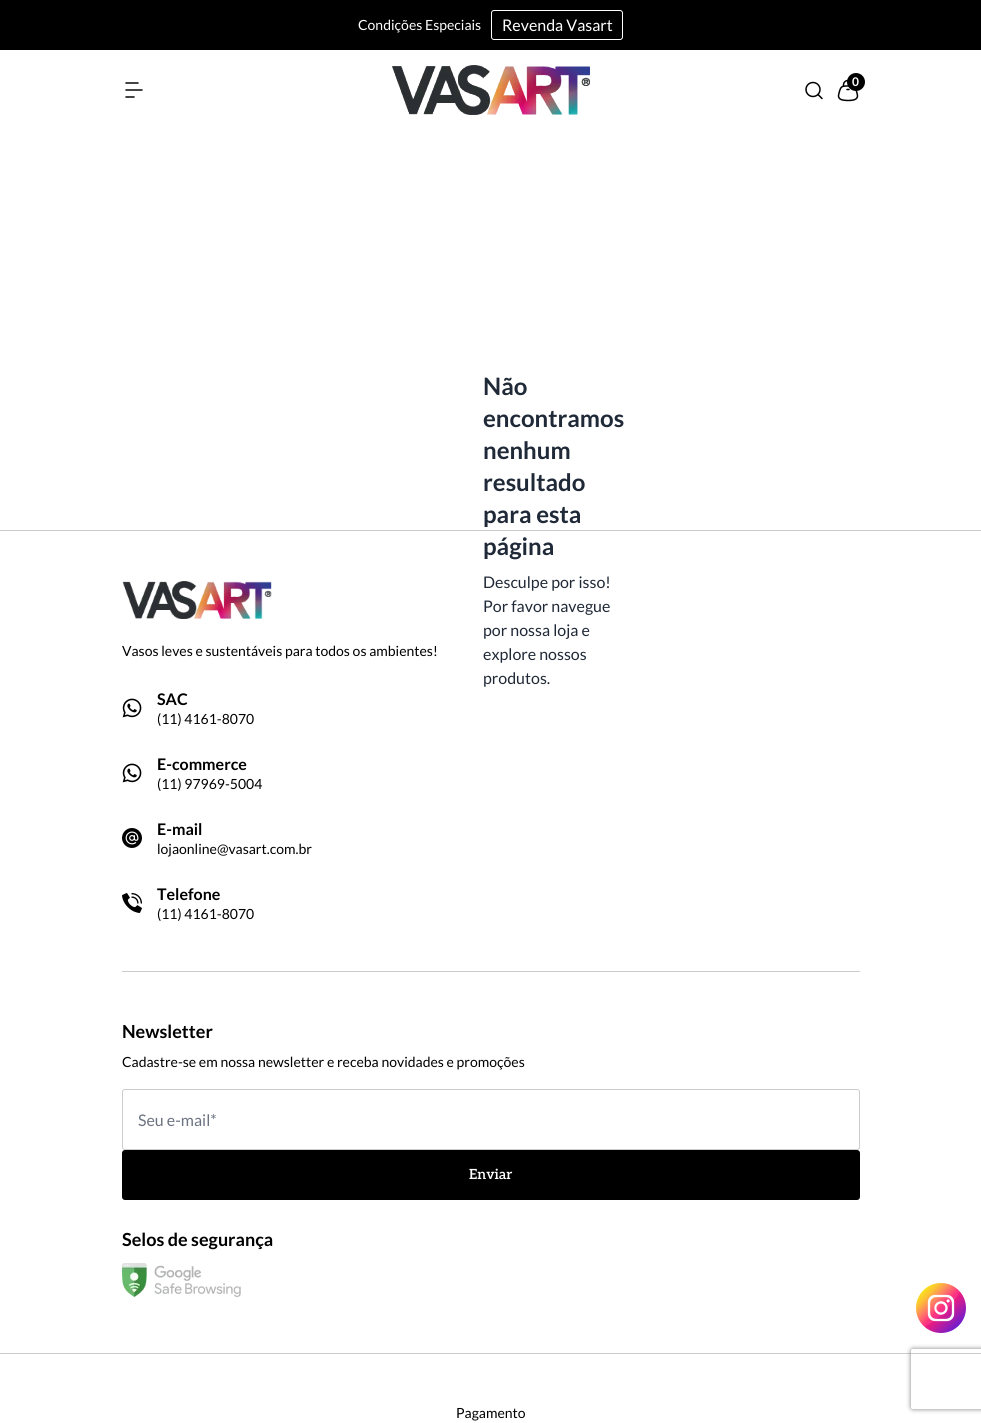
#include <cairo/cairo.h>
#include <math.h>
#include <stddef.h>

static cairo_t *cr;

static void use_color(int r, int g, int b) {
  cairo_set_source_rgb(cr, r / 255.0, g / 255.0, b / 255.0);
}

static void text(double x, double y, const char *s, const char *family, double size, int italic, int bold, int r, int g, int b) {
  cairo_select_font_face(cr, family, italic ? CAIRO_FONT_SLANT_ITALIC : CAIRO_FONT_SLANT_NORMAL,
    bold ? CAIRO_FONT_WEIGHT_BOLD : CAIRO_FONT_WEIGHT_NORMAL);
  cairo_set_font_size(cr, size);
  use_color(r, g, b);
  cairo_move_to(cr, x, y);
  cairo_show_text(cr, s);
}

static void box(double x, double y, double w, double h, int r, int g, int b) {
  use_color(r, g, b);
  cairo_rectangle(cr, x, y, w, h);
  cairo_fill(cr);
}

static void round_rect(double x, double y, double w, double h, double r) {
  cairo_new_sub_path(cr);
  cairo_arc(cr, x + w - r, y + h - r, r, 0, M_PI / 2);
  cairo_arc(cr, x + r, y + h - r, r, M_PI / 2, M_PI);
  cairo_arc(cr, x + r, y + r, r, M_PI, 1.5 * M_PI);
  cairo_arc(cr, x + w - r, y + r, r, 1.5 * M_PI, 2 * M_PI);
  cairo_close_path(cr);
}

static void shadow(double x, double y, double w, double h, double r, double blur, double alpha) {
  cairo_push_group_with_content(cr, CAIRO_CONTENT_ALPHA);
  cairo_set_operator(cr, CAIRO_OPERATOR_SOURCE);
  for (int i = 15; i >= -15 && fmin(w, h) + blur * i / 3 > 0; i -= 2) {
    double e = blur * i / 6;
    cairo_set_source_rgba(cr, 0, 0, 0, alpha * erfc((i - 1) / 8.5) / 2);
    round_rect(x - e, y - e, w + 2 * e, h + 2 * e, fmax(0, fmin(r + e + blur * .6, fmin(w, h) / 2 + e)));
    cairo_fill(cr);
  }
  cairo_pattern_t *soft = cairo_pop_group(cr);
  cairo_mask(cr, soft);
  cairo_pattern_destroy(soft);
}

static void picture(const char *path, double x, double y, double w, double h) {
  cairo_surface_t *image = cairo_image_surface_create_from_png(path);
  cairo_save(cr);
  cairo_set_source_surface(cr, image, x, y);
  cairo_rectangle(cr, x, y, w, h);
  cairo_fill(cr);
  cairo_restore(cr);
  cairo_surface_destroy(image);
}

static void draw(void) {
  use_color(255, 255, 255);
  cairo_paint(cr);
  box(0, 0, 981, 50, 0, 0, 0);
  round_rect(491.5, 10.5, 131, 29, 2.5);
  use_color(255, 255, 255);
  cairo_set_line_width(cr, 1);
  cairo_stroke(cr);
  picture("img_01.png", 125, 82, 18, 16);
  picture("img_02.png", 392, 65, 198, 50);
  picture("img_03.png", 805, 81, 18, 19);
  picture("img_04.png", 837, 79, 22, 23);
  use_color(0, 0, 0);
  cairo_arc(cr, 856, 82, 9, 0, 2 * M_PI);
  cairo_fill(cr);
  box(0, 530, 981, 1, 204, 204, 204);
  picture("img_05.png", 122, 581, 150, 38);
  picture("img_06.png", 122, 698, 20, 20);
  picture("img_06.png", 122, 763, 20, 20);
  picture("img_07.png", 122, 828, 20, 20);
  picture("img_08.png", 122, 893, 20, 20);
  box(122, 971, 738, 1, 204, 204, 204);
  round_rect(122.5, 1089.5, 737, 60, 2.5);
  cairo_stroke(cr);
  use_color(0, 0, 0);
  round_rect(122, 1150, 738, 50, 3);
  cairo_fill(cr);
  picture("img_09.png", 122, 1263, 119, 34);
  picture("img_10.png", 916, 1283, 50, 50);
  box(0, 1353, 981, 1, 204, 204, 204);
  cairo_save(cr);
  cairo_set_fill_rule(cr, CAIRO_FILL_RULE_EVEN_ODD);
  cairo_new_path(cr);
  cairo_move_to(cr, 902, 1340);
  cairo_line_to(cr, 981, 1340);
  cairo_line_to(cr, 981, 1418);
  cairo_line_to(cr, 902, 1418);
  cairo_close_path(cr);
  cairo_move_to(cr, 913, 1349);
  cairo_line_to(cr, 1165, 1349);
  cairo_curve_to(cr, 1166, 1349, 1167, 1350, 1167, 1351);
  cairo_line_to(cr, 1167, 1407);
  cairo_curve_to(cr, 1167, 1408, 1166, 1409, 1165, 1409);
  cairo_line_to(cr, 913, 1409);
  cairo_curve_to(cr, 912, 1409, 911, 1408, 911, 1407);
  cairo_line_to(cr, 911, 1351);
  cairo_curve_to(cr, 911, 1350, 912, 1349, 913, 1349);
  cairo_close_path(cr);
  cairo_clip(cr);
  use_color(128, 128, 128);
  shadow(911, 1349, 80, 60, 2, 2.5, 1);
  cairo_restore(cr);
  text(358, 30, "Condições Especiais", "Lato", 14, 0, 0, 255, 255, 255);
  text(502, 31, "Revenda Vasart", "Lato", 16, 0, 0, 255, 255, 255);
  text(852, 86, "0", "Lato", 12, 0, 1, 255, 255, 255);
  text(483, 395, "Não", "Lato", 24, 0, 1, 31, 41, 55);
  text(483, 427, "encontramos", "Lato", 24, 0, 1, 31, 41, 55);
  text(483, 459, "nenhum", "Lato", 24, 0, 1, 31, 41, 55);
  text(483, 491, "resultado", "Lato", 24, 0, 1, 31, 41, 55);
  text(483, 523, "para esta", "Lato", 24, 0, 1, 31, 41, 55);
  text(483, 555, "página", "Lato", 24, 0, 1, 31, 41, 55);
  text(483, 588, "Desculpe por isso!", "Lato", 16, 0, 0, 31, 41, 55);
  text(483, 612, "Por favor navegue", "Lato", 16, 0, 0, 31, 41, 55);
  text(483, 636, "por nossa loja e", "Lato", 16, 0, 0, 31, 41, 55);
  text(483, 660, "explore nossos", "Lato", 16, 0, 0, 31, 41, 55);
  text(483, 684, "produtos.", "Lato", 16, 0, 0, 31, 41, 55);
  text(122, 656, "Vasos leves e sustentáveis para todos os ambientes!", "Lato", 14, 0, 0, 0, 0, 0);
  text(157, 705, "SAC", "Lato", 16, 0, 1, 0, 0, 0);
  text(157, 724, "(11) 4161-8070", "Lato", 14, 0, 0, 0, 0, 0);
  text(157, 770, "E-commerce", "Lato", 16, 0, 1, 0, 0, 0);
  text(157, 789, "(11) 97969-5004", "Lato", 14, 0, 0, 0, 0, 0);
  text(157, 835, "E-mail", "Lato", 16, 0, 1, 0, 0, 0);
  text(157, 854, "lojaonline@vasart.com.br", "Lato", 14, 0, 0, 0, 0, 0);
  text(157, 900, "Telefone", "Lato", 16, 0, 1, 0, 0, 0);
  text(157, 919, "(11) 4161-8070", "Lato", 14, 0, 0, 0, 0, 0);
  text(122, 1038, "Newsletter", "Lato", 18, 0, 1, 0, 0, 0);
  text(122, 1067, "Cadastre-se em nossa newsletter e receba novidades e promoções", "Lato", 14, 0, 0, 0, 0, 0);
  text(138, 1126, "Seu e-mail*", "Lato", 16, 0, 0, 107, 114, 128);
  text(469, 1179, "Enviar", "Aleo SemiBold", 14, 0, 0, 255, 255, 255);
  text(122, 1246, "Selos de segurança", "Lato", 18, 0, 1, 0, 0, 0);
  text(456, 1418, "Pagamento", "Lato", 14, 0, 0, 0, 0, 0);
}

int main(void) {
  cairo_surface_t *surface = cairo_image_surface_create(CAIRO_FORMAT_RGB24, 981, 1423);
  cr = cairo_create(surface);
  cairo_font_options_t *options = cairo_font_options_create();
  cairo_font_options_set_hint_metrics(options, CAIRO_HINT_METRICS_OFF);
  cairo_font_options_set_hint_style(options, CAIRO_HINT_STYLE_NONE);
  cairo_set_font_options(cr, options);
  cairo_set_miter_limit(cr, 4);
  draw();
  cairo_surface_write_to_png(surface, "out.png");
  cairo_font_options_destroy(options);
  cairo_destroy(cr);
  cairo_surface_destroy(surface);
  return 0;
}
